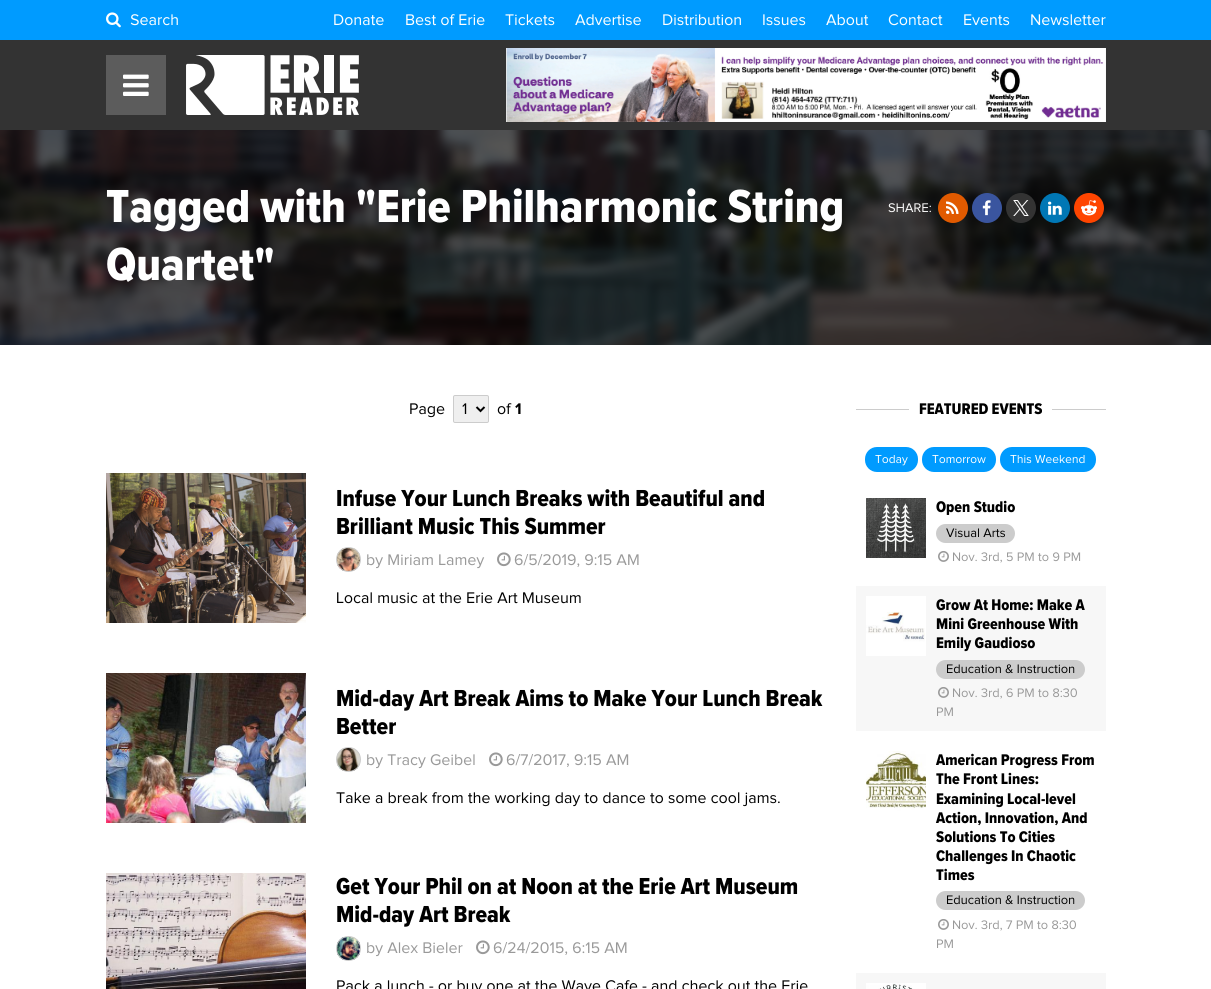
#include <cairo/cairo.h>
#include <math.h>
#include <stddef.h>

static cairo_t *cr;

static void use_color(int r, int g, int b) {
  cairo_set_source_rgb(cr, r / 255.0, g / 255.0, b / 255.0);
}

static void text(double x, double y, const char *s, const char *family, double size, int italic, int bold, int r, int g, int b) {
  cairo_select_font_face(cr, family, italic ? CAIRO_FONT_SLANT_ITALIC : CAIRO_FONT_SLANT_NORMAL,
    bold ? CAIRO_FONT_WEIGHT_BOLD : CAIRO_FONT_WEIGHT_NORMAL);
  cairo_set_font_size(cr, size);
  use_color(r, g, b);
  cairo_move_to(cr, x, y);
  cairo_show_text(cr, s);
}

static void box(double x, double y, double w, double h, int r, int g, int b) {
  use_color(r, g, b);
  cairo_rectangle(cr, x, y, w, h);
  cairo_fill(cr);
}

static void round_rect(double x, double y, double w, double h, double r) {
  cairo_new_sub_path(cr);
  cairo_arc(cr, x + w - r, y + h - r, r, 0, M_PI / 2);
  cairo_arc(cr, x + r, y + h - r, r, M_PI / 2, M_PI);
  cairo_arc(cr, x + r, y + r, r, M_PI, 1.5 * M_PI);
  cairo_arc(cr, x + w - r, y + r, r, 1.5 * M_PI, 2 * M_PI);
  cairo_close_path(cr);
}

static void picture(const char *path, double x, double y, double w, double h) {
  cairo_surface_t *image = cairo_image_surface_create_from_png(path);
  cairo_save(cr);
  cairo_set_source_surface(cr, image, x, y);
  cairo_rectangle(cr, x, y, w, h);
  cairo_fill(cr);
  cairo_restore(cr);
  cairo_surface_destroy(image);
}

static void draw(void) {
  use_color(255, 255, 255);
  cairo_paint(cr);
  box(0, 40, 1211, 90, 51, 51, 51);
  box(0, 0, 1211, 40, 0, 155, 255);
  picture("img_01.png", 106, 12, 15, 16);
  picture("img_02.png", 130, 14, 48, 12);
  picture("img_03.png", 334, 14, 50, 12);
  picture("img_04.png", 406, 14, 79, 12);
  picture("img_05.png", 505, 14, 50, 12);
  picture("img_06.png", 575, 14, 66, 12);
  picture("img_07.png", 663, 14, 78, 12);
  picture("img_08.png", 763, 14, 43, 12);
  picture("img_09.png", 826, 14, 43, 12);
  picture("img_10.png", 888, 14, 55, 12);
  picture("img_11.png", 964, 14, 46, 12);
  picture("img_12.png", 1031, 14, 75, 12);
  box(106, 55, 60, 60, 92, 92, 92);
  picture("img_13.png", 123, 74, 26, 22);
  picture("img_14.png", 186, 55, 173, 60);
  box(506, 48, 600, 74, 235, 235, 235);
  picture("img_15.png", 506, 48, 600, 74);
  box(0, 130, 1211, 215, 0, 0, 0);
  picture("img_16.png", 0, 130, 1211, 215);
  picture("img_17.png", 888, 203, 43, 10);
  use_color(225, 90, 0);
  cairo_arc(cr, 953, 208, 15, 0, 2 * M_PI);
  cairo_fill(cr);
  picture("img_18.png", 946, 201, 13, 13);
  use_color(58, 85, 159);
  cairo_arc(cr, 987, 208, 15, 0, 2 * M_PI);
  cairo_fill(cr);
  picture("img_19.png", 982, 200, 9, 16);
  use_color(51, 51, 51);
  cairo_arc(cr, 1021, 208, 15, 0, 2 * M_PI);
  cairo_fill(cr);
  picture("img_20.png", 1013, 200, 16, 16);
  use_color(0, 119, 181);
  cairo_arc(cr, 1055, 208, 15, 0, 2 * M_PI);
  cairo_fill(cr);
  picture("img_21.png", 1048, 201, 14, 14);
  use_color(255, 69, 0);
  cairo_arc(cr, 1089, 208, 15, 0, 2 * M_PI);
  cairo_fill(cr);
  picture("img_22.png", 1081, 200, 16, 16);
  picture("img_23.png", 410, 403, 35, 15);
  use_color(239, 239, 239);
  round_rect(453.5, 395.5, 35, 27, 1.5);
  cairo_fill_preserve(cr);
  use_color(204, 204, 204);
  cairo_set_line_width(cr, 1);
  cairo_stroke(cr);
  cairo_new_path(cr);
  cairo_move_to(cr, 476.5, 407);
  cairo_line_to(cr, 480.5, 411);
  cairo_line_to(cr, 484.5, 407);
  use_color(0, 0, 0);
  cairo_set_line_width(cr, 2);
  cairo_stroke(cr);
  picture("img_24.png", 462, 403, 5, 11);
  picture("img_25.png", 497, 403, 15, 12);
  picture("img_26.png", 515, 403, 6, 11);
  picture("img_27.png", 106, 473, 200, 150);
  picture("img_28.png", 337, 548, 23, 23);
  cairo_arc(cr, 348.5, 559.5, 12, 0, 2 * M_PI);
  use_color(204, 204, 204);
  cairo_set_line_width(cr, 1);
  cairo_stroke(cr);
  picture("img_29.png", 367, 554, 118, 15);
  picture("img_30.png", 497, 552, 14, 15);
  picture("img_31.png", 514, 554, 125, 13);
  picture("img_32.png", 337, 592, 244, 12);
  picture("img_33.png", 106, 673, 200, 150);
  picture("img_34.png", 337, 748, 23, 23);
  cairo_arc(cr, 348.5, 759.5, 12, 0, 2 * M_PI);
  cairo_stroke(cr);
  picture("img_35.png", 367, 754, 108, 15);
  picture("img_30.png", 489, 752, 14, 15);
  picture("img_36.png", 506, 754, 123, 13);
  picture("img_37.png", 336, 792, 444, 15);
  picture("img_38.png", 106, 873, 200, 116);
  picture("img_39.png", 337, 937, 23, 23);
  cairo_arc(cr, 348.5, 948.5, 12, 0, 2 * M_PI);
  cairo_stroke(cr);
  picture("img_40.png", 367, 942, 96, 15);
  picture("img_30.png", 476, 940, 14, 15);
  picture("img_41.png", 493, 942, 134, 13);
  picture("img_42.png", 337, 980, 471, 9);
  box(856, 409, 250, 1, 204, 204, 204);
  box(909, 409, 143, 1, 255, 255, 255);
  use_color(0, 155, 255);
  round_rect(865, 447, 53, 25, 12);
  cairo_fill(cr);
  picture("img_43.png", 875, 455, 33, 11);
  round_rect(922, 447, 74, 25, 12);
  cairo_fill(cr);
  picture("img_44.png", 932, 455, 54, 9);
  round_rect(1000, 447, 96, 25, 12);
  cairo_fill(cr);
  picture("img_45.png", 1010, 455, 75, 9);
  picture("img_46.png", 866, 498, 60, 60);
  use_color(204, 204, 204);
  round_rect(936, 524, 79, 19, 9.5);
  cairo_fill(cr);
  picture("img_47.png", 946, 528, 59, 10);
  picture("img_48.png", 938, 551, 11, 11);
  picture("img_49.png", 953, 552, 128, 11);
  box(856, 586, 250, 145, 247, 247, 247);
  picture("img_50.png", 866, 596, 60, 60);
  use_color(204, 204, 204);
  round_rect(936, 660, 149, 19, 9.5);
  cairo_fill(cr);
  picture("img_51.png", 947, 664, 128, 10);
  picture("img_52.png", 938, 687, 11, 11);
  picture("img_53.png", 953, 688, 124, 11);
  picture("img_54.png", 937, 707, 16, 9);
  picture("img_55.png", 866, 751, 60, 60);
  round_rect(936, 891, 149, 19, 9.5);
  cairo_fill(cr);
  picture("img_51.png", 947, 895, 128, 10);
  picture("img_48.png", 938, 919, 11, 11);
  picture("img_56.png", 953, 920, 123, 11);
  picture("img_57.png", 937, 939, 16, 9);
  box(856, 973, 250, 16, 247, 247, 247);
  picture("img_58.png", 866, 983, 60, 6);
  text(106, 222, "Tagged with \"Erie Philharmonic String", "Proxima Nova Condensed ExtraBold", 48, 0, 0, 255, 255, 255);
  text(106, 280, "Quartet\"", "Proxima Nova Condensed ExtraBold", 48, 0, 0, 255, 255, 255);
  text(336, 506, "Infuse Your Lunch Breaks with Beautiful and", "Proxima Nova Condensed ExtraBold", 24, 0, 0, 0, 0, 0);
  text(336, 534, "Brilliant Music This Summer", "Proxima Nova Condensed ExtraBold", 24, 0, 0, 0, 0, 0);
  text(336, 706, "Mid-day Art Break Aims to Make Your Lunch Break", "Proxima Nova Condensed ExtraBold", 24, 0, 0, 0, 0, 0);
  text(336, 734, "Better", "Proxima Nova Condensed ExtraBold", 24, 0, 0, 0, 0, 0);
  text(336, 894, "Get Your Phil on at Noon at the Erie Art Museum", "Proxima Nova Condensed ExtraBold", 24, 0, 0, 0, 0, 0);
  text(336, 922, "Mid-day Art Break", "Proxima Nova Condensed ExtraBold", 24, 0, 0, 0, 0, 0);
  text(919, 414, "FEATURED EVENTS", "Proxima Nova Condensed ExtraBold", 16, 0, 0, 0, 0, 0);
  text(936, 512, "Open Studio", "Proxima Nova Condensed ExtraBold", 16, 0, 0, 0, 0, 0);
  text(936, 610, "Grow At Home: Make A", "Proxima Nova Condensed ExtraBold", 16, 0, 0, 0, 0, 0);
  text(936, 629, "Mini Greenhouse With", "Proxima Nova Condensed ExtraBold", 16, 0, 0, 0, 0, 0);
  text(936, 648, "Emily Gaudioso", "Proxima Nova Condensed ExtraBold", 16, 0, 0, 0, 0, 0);
  text(936, 765, "American Progress From", "Proxima Nova Condensed ExtraBold", 16, 0, 0, 0, 0, 0);
  text(936, 784, "The Front Lines:", "Proxima Nova Condensed ExtraBold", 16, 0, 0, 0, 0, 0);
  text(936, 804, "Examining Local-level", "Proxima Nova Condensed ExtraBold", 16, 0, 0, 0, 0, 0);
  text(936, 823, "Action, Innovation, And", "Proxima Nova Condensed ExtraBold", 16, 0, 0, 0, 0, 0);
  text(936, 842, "Solutions To Cities", "Proxima Nova Condensed ExtraBold", 16, 0, 0, 0, 0, 0);
  text(936, 861, "Challenges In Chaotic", "Proxima Nova Condensed ExtraBold", 16, 0, 0, 0, 0, 0);
  text(936, 880, "Times", "Proxima Nova Condensed ExtraBold", 16, 0, 0, 0, 0, 0);
}

int main(void) {
  cairo_surface_t *surface = cairo_image_surface_create(CAIRO_FORMAT_RGB24, 1211, 989);
  cr = cairo_create(surface);
  cairo_font_options_t *options = cairo_font_options_create();
  cairo_font_options_set_hint_metrics(options, CAIRO_HINT_METRICS_OFF);
  cairo_font_options_set_hint_style(options, CAIRO_HINT_STYLE_NONE);
  cairo_set_font_options(cr, options);
  cairo_set_miter_limit(cr, 4);
  draw();
  cairo_surface_write_to_png(surface, "out.png");
  cairo_font_options_destroy(options);
  cairo_destroy(cr);
  cairo_surface_destroy(surface);
  return 0;
}
